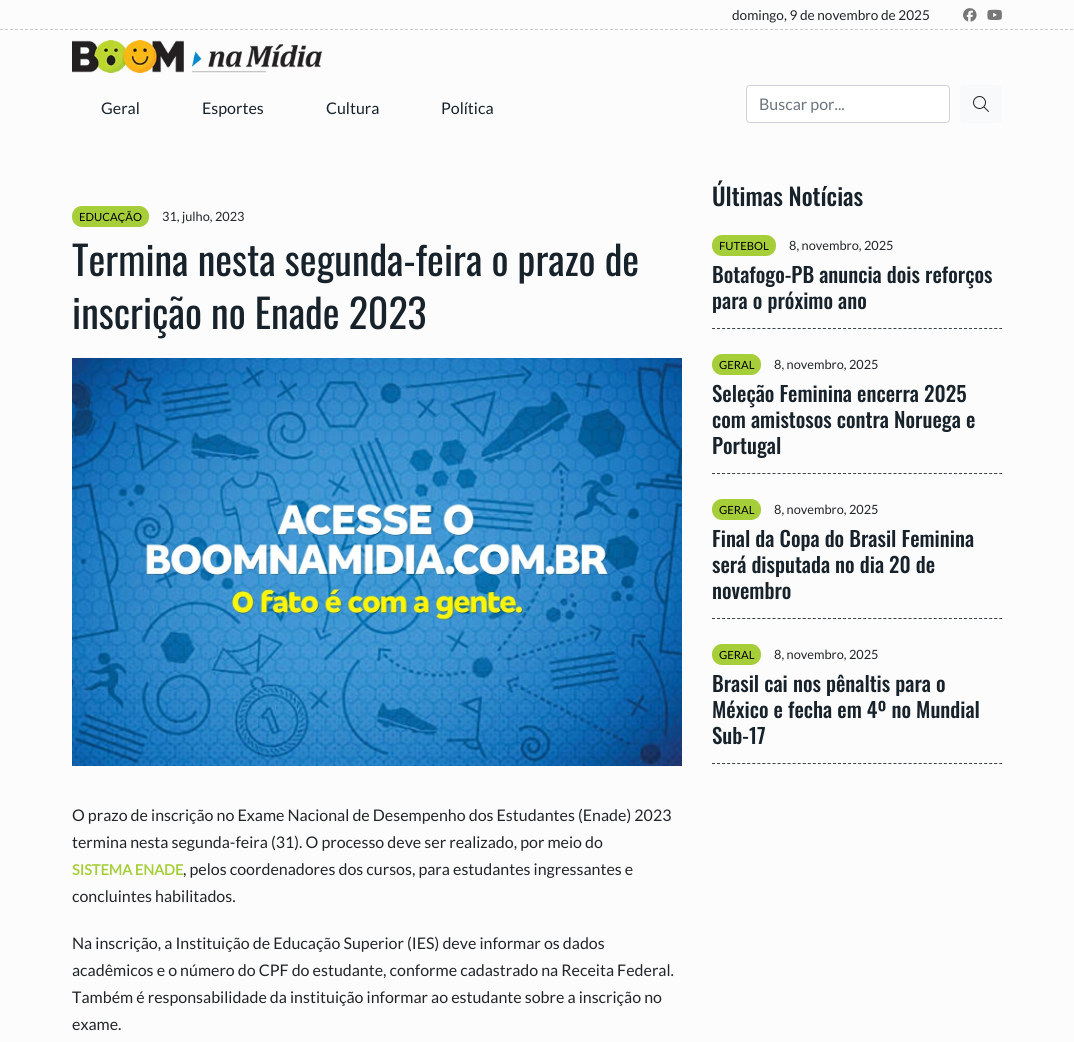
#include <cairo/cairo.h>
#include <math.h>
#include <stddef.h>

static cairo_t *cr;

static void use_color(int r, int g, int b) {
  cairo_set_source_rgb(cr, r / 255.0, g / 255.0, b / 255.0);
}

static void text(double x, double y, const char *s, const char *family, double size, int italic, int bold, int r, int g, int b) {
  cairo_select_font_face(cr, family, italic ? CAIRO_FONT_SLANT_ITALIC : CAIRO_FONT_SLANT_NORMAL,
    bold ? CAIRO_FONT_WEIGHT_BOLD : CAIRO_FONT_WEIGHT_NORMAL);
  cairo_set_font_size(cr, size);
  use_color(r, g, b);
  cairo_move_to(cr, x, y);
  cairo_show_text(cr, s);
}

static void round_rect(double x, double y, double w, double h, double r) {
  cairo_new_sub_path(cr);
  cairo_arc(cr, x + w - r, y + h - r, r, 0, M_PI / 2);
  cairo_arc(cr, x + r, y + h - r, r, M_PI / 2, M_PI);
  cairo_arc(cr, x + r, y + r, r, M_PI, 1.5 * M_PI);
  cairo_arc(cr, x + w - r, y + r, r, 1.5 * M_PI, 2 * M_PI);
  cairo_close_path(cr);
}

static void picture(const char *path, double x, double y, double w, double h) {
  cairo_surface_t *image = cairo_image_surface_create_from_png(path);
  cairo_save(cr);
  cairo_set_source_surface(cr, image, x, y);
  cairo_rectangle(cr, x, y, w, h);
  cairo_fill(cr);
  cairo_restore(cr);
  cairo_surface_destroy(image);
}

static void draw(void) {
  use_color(252, 252, 252);
  cairo_paint(cr);
  cairo_new_path(cr);
  cairo_move_to(cr, 0, 29.5);
  cairo_line_to(cr, 1074, 29.5);
  use_color(204, 204, 204);
  cairo_set_line_width(cr, 1);
  cairo_set_dash(cr, (double[]){3, 2}, 2, 0);
  cairo_stroke(cr);
  picture("img_01.png", 963, 8, 14, 14);
  picture("img_02.png", 987, 9, 15, 11);
  picture("img_03.png", 72, 40, 250, 33);
  use_color(255, 255, 255);
  round_rect(746.5, 85.5, 203, 37, 3.5);
  cairo_fill_preserve(cr);
  use_color(206, 212, 218);
  cairo_set_dash(cr, NULL, 0, 0);
  cairo_stroke(cr);
  use_color(248, 249, 250);
  round_rect(960, 85, 42, 38, 4);
  cairo_fill(cr);
  picture("img_04.png", 973, 96, 16, 16);
  use_color(166, 206, 57);
  round_rect(72, 206, 77, 21, 10);
  cairo_fill(cr);
  picture("img_05.png", 72, 358, 610, 408);
  round_rect(712, 235, 64, 21, 10);
  cairo_fill(cr);
  cairo_new_path(cr);
  cairo_move_to(cr, 712, 328.5);
  cairo_line_to(cr, 1002, 328.5);
  use_color(58, 67, 75);
  cairo_set_dash(cr, (double[]){3, 2.04}, 2, 0);
  cairo_stroke(cr);
  use_color(166, 206, 57);
  round_rect(712, 354, 49, 21, 10);
  cairo_fill(cr);
  cairo_new_path(cr);
  cairo_move_to(cr, 712, 473.5);
  cairo_line_to(cr, 1002, 473.5);
  use_color(58, 67, 75);
  cairo_stroke(cr);
  use_color(166, 206, 57);
  round_rect(712, 499, 49, 21, 10);
  cairo_fill(cr);
  cairo_new_path(cr);
  cairo_move_to(cr, 712, 618.5);
  cairo_line_to(cr, 1002, 618.5);
  use_color(58, 67, 75);
  cairo_stroke(cr);
  use_color(166, 206, 57);
  round_rect(712, 644, 49, 21, 10);
  cairo_fill(cr);
  cairo_new_path(cr);
  cairo_move_to(cr, 712, 763.5);
  cairo_line_to(cr, 1002, 763.5);
  use_color(58, 67, 75);
  cairo_stroke(cr);
  text(732, 20, "domingo, 9 de novembro de 2025", "Lato", 13.6, 0, 0, 33, 37, 41);
  text(101, 114, "Geral", "Lato", 16, 0, 0, 23, 34, 43);
  text(202, 114, "Esportes", "Lato", 16, 0, 0, 23, 34, 43);
  text(326, 114, "Cultura", "Lato", 16, 0, 0, 23, 34, 43);
  text(441, 114, "Política", "Lato", 16, 0, 0, 23, 34, 43);
  text(759, 110, "Buscar por...", "Lato", 16, 0, 0, 108, 117, 125);
  text(79, 221, "EDUCAÇÃO", "Lato", 11.25, 0, 0, 0, 0, 0);
  text(162, 221, "31, julho, 2023", "Lato", 12.75, 0, 0, 33, 37, 41);
  text(72, 276, "Termina nesta segunda-feira o prazo de", "Oswald", 40, 0, 0, 23, 34, 43);
  text(72, 329, "inscrição no Enade 2023", "Oswald", 40, 0, 0, 23, 34, 43);
  text(72, 821, "O prazo de inscrição no Exame Nacional de Desempenho dos Estudantes (Enade) 2023", "Lato", 16, 0, 0, 33, 37, 41);
  text(72, 848, "termina nesta segunda-feira (31). O processo deve ser realizado, por meio do", "Lato", 16, 0, 0, 33, 37, 41);
  text(72, 875, "SISTEMA ENADE", "Lato", 14.5, 0, 1, 166, 206, 57);
  text(183, 875, ", pelos coordenadores dos cursos, para estudantes ingressantes e", "Lato", 16, 0, 0, 33, 37, 41);
  text(72, 902, "concluintes habilitados.", "Lato", 16, 0, 0, 33, 37, 41);
  text(72, 949, "Na inscrição, a Instituição de Educação Superior (IES) deve informar os dados", "Lato", 16, 0, 0, 33, 37, 41);
  text(72, 976, "acadêmicos e o número do CPF do estudante, conforme cadastrado na Receita Federal.", "Lato", 16, 0, 0, 33, 37, 41);
  text(72, 1003, "Também é responsabilidade da instituição informar ao estudante sobre a inscrição no", "Lato", 16, 0, 0, 33, 37, 41);
  text(72, 1030, "exame.", "Lato", 16, 0, 0, 33, 37, 41);
  text(712, 206, "Últimas Notícias", "Oswald Medium", 24, 0, 0, 23, 34, 43);
  text(719, 250, "FUTEBOL", "Lato", 11.25, 0, 0, 0, 0, 0);
  text(789, 250, "8, novembro, 2025", "Lato", 12.75, 0, 0, 33, 37, 41);
  text(712, 283, "Botafogo-PB anuncia dois reforços", "Oswald Medium", 21, 0, 0, 23, 34, 43);
  text(712, 309, "para o próximo ano", "Oswald Medium", 21, 0, 0, 23, 34, 43);
  text(719, 369, "GERAL", "Lato", 11.25, 0, 0, 0, 0, 0);
  text(774, 369, "8, novembro, 2025", "Lato", 12.75, 0, 0, 33, 37, 41);
  text(712, 402, "Seleção Feminina encerra 2025", "Oswald Medium", 21, 0, 0, 23, 34, 43);
  text(712, 428, "com amistosos contra Noruega e", "Oswald Medium", 21, 0, 0, 23, 34, 43);
  text(712, 454, "Portugal", "Oswald Medium", 21, 0, 0, 23, 34, 43);
  text(719, 514, "GERAL", "Lato", 11.25, 0, 0, 0, 0, 0);
  text(774, 514, "8, novembro, 2025", "Lato", 12.75, 0, 0, 33, 37, 41);
  text(712, 547, "Final da Copa do Brasil Feminina", "Oswald Medium", 21, 0, 0, 23, 34, 43);
  text(712, 573, "será disputada no dia 20 de", "Oswald Medium", 21, 0, 0, 23, 34, 43);
  text(712, 599, "novembro", "Oswald Medium", 21, 0, 0, 23, 34, 43);
  text(719, 659, "GERAL", "Lato", 11.25, 0, 0, 0, 0, 0);
  text(774, 659, "8, novembro, 2025", "Lato", 12.75, 0, 0, 33, 37, 41);
  text(712, 692, "Brasil cai nos pênaltis para o", "Oswald Medium", 21, 0, 0, 23, 34, 43);
  text(712, 718, "México e fecha em 4º no Mundial", "Oswald Medium", 21, 0, 0, 23, 34, 43);
  text(712, 744, "Sub-17", "Oswald Medium", 21, 0, 0, 23, 34, 43);
}

int main(void) {
  cairo_surface_t *surface = cairo_image_surface_create(CAIRO_FORMAT_RGB24, 1074, 1042);
  cr = cairo_create(surface);
  cairo_font_options_t *options = cairo_font_options_create();
  cairo_font_options_set_hint_metrics(options, CAIRO_HINT_METRICS_OFF);
  cairo_font_options_set_hint_style(options, CAIRO_HINT_STYLE_NONE);
  cairo_set_font_options(cr, options);
  cairo_set_miter_limit(cr, 4);
  draw();
  cairo_surface_write_to_png(surface, "out.png");
  cairo_font_options_destroy(options);
  cairo_destroy(cr);
  cairo_surface_destroy(surface);
  return 0;
}
